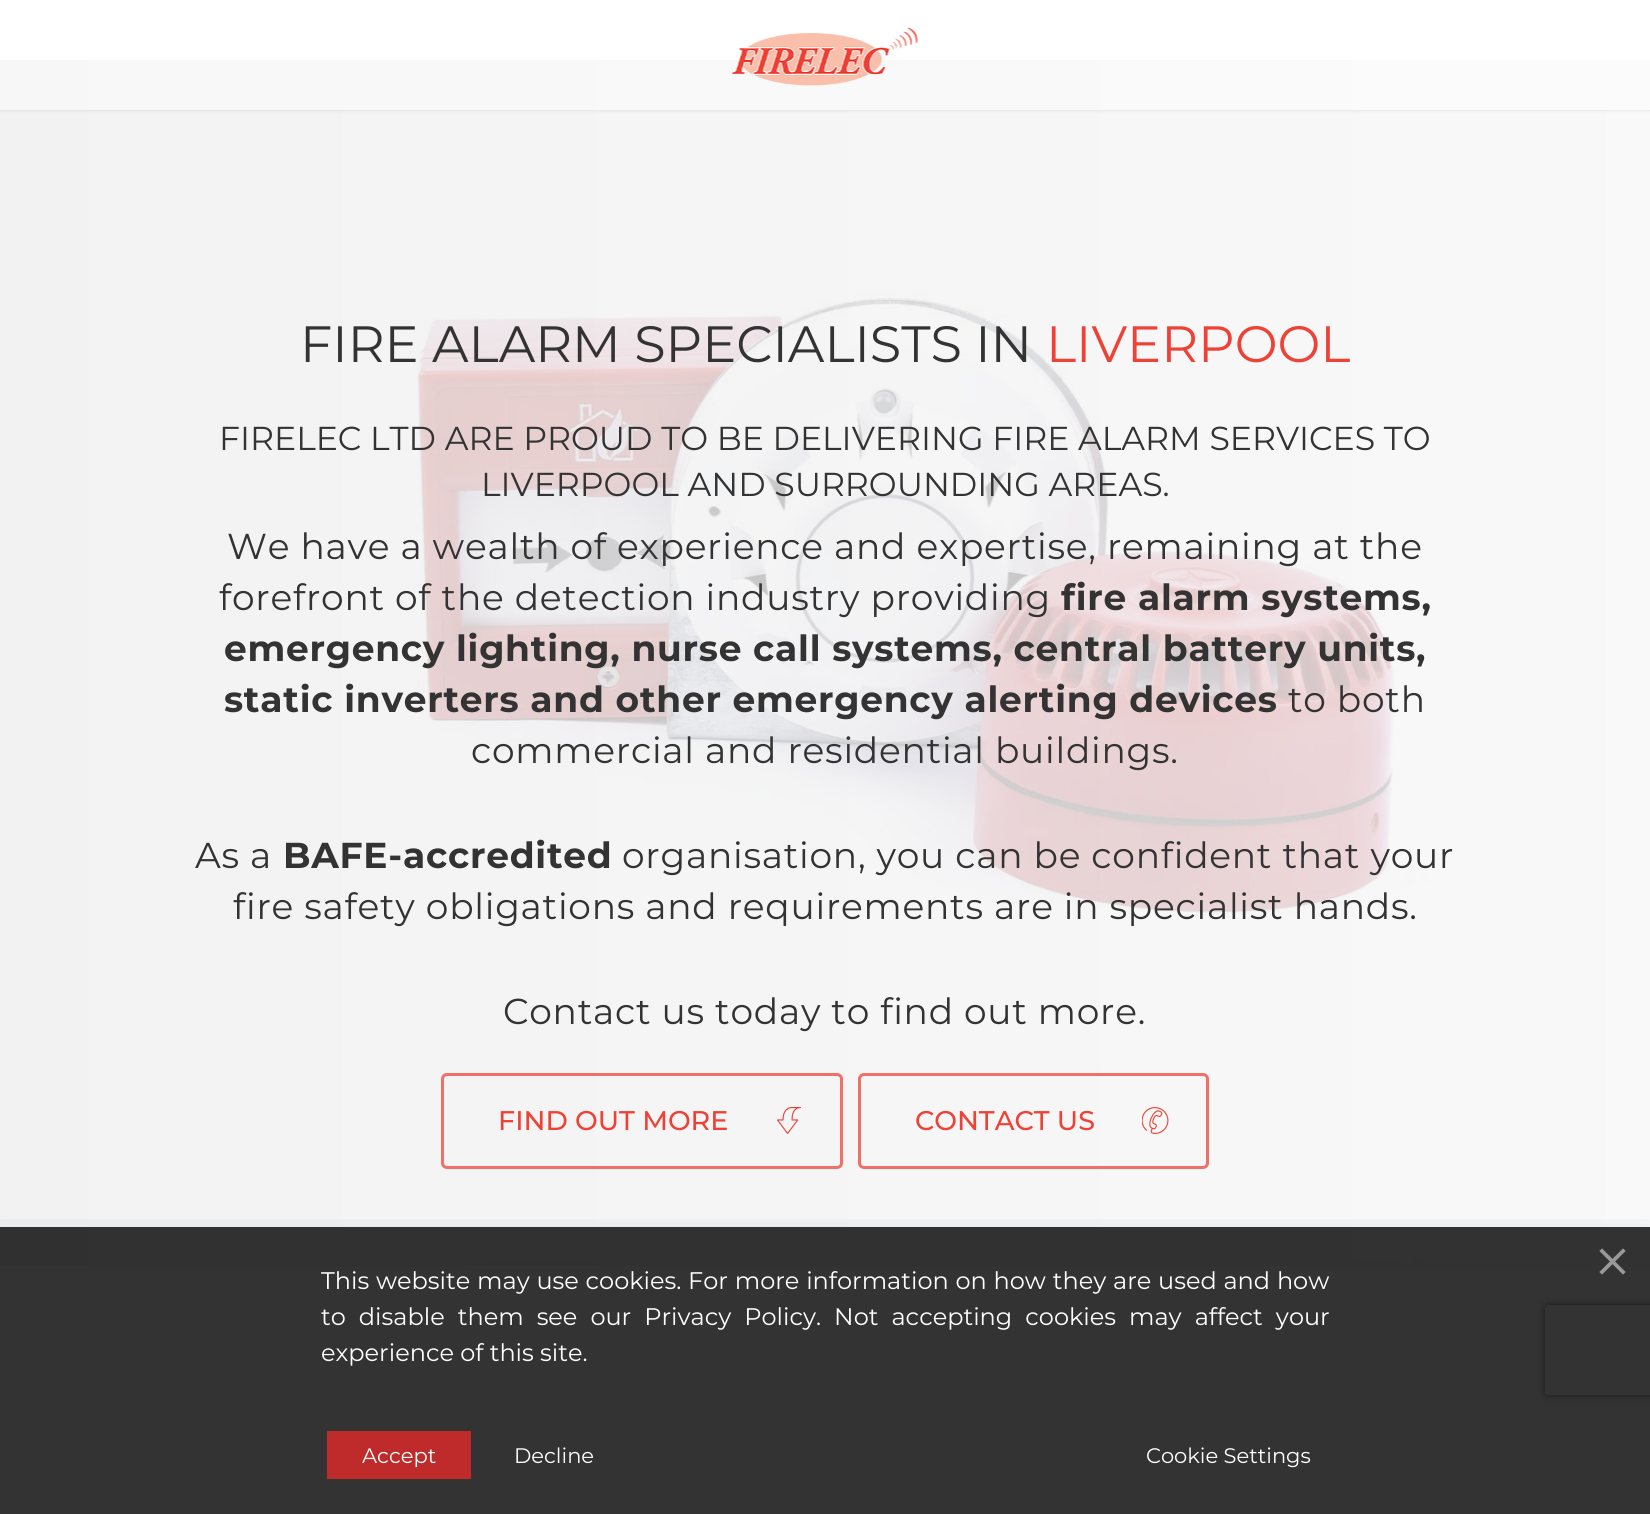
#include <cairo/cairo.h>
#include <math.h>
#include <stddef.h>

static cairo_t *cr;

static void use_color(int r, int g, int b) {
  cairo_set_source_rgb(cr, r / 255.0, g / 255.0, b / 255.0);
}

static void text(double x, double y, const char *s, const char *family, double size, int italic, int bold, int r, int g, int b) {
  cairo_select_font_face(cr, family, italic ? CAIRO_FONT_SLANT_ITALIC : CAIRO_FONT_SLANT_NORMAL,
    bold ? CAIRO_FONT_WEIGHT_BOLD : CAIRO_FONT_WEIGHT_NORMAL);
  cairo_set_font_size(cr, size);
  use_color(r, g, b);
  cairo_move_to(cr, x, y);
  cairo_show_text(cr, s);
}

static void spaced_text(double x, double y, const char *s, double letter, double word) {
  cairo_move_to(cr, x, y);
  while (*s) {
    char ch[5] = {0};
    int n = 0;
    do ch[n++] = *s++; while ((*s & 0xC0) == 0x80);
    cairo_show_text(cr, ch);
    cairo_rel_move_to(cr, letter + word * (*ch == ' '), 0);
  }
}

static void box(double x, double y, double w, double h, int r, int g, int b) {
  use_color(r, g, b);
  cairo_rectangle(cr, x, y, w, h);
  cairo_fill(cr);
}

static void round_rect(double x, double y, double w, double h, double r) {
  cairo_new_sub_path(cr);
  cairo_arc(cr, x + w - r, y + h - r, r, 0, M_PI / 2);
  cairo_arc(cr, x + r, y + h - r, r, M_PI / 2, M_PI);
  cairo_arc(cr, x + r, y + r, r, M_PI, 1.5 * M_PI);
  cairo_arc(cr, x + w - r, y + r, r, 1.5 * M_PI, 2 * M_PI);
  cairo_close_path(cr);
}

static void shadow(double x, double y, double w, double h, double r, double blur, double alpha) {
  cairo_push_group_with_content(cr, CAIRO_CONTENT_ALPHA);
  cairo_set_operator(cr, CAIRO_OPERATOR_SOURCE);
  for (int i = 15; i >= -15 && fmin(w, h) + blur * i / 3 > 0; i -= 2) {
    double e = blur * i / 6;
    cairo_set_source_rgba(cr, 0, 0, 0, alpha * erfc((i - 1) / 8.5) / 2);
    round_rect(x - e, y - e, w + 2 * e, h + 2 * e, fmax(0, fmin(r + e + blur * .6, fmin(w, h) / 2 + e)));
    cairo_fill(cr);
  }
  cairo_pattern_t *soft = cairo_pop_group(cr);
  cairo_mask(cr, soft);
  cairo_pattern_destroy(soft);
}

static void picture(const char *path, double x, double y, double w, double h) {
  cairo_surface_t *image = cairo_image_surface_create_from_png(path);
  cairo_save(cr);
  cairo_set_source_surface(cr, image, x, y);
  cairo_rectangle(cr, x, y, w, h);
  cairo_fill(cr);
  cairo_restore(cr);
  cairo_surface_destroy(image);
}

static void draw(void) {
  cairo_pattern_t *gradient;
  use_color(255, 255, 255);
  cairo_paint(cr);
  picture("img_02.png", 417, 293, 1079, 973);
  gradient = cairo_pattern_create_linear(0, 663, 1650, 663);
  cairo_pattern_add_color_stop_rgba(gradient, 0, 0.937, 0.937, 0.937, 0.8);
  cairo_pattern_add_color_stop_rgba(gradient, 1, 0.969, 0.969, 0.969, 0.8);
  cairo_set_source(cr, gradient);
  cairo_pattern_destroy(gradient);
  cairo_rectangle(cr, 0, 60, 1650, 1206);
  cairo_fill(cr);
  cairo_save(cr);
  cairo_set_fill_rule(cr, CAIRO_FILL_RULE_EVEN_ODD);
  cairo_new_path(cr);
  cairo_move_to(cr, 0, 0);
  cairo_line_to(cr, 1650, 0);
  cairo_line_to(cr, 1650, 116);
  cairo_line_to(cr, 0, 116);
  cairo_close_path(cr);
  cairo_move_to(cr, 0, -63);
  cairo_line_to(cr, 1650, -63);
  cairo_line_to(cr, 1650, 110);
  cairo_line_to(cr, 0, 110);
  cairo_close_path(cr);
  cairo_clip(cr);
  use_color(0, 0, 0);
  shadow(0, -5, 1650, 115, 0, 1.5, 0.14);
  cairo_restore(cr);
  cairo_set_source_rgba(cr, 1, 1, 1, 0.39);
  cairo_rectangle(cr, 0, 60, 1650, 50);
  cairo_fill(cr);
  picture("img_01.png", 731, 27, 187, 59);
  round_rect(442.5, 1074.5, 399, 93, 4.5);
  use_color(240, 111, 102);
  cairo_set_line_width(cr, 3);
  cairo_stroke(cr);
  picture("img_03.png", 777, 1107, 24, 27);
  round_rect(859.5, 1074.5, 348, 93, 4.5);
  use_color(240, 111, 103);
  cairo_stroke(cr);
  picture("img_04.png", 1142, 1107, 27, 27);
  picture("img_05.png", 0, 1266, 820, 247);
  cairo_save(cr);
  cairo_rectangle(cr, 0, 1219, 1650, 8);
  cairo_clip(cr);
  use_color(4, 42, 75);
  shadow(0, 1230, 1650, 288, 0, 12.5, 0.11);
  cairo_restore(cr);
  cairo_save(cr);
  cairo_set_fill_rule(cr, CAIRO_FILL_RULE_EVEN_ODD);
  cairo_new_path(cr);
  cairo_move_to(cr, 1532, 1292);
  cairo_line_to(cr, 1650, 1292);
  cairo_line_to(cr, 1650, 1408);
  cairo_line_to(cr, 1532, 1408);
  cairo_close_path(cr);
  cairo_move_to(cr, 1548, 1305);
  cairo_line_to(cr, 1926, 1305);
  cairo_curve_to(cr, 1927.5, 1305, 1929, 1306.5, 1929, 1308);
  cairo_line_to(cr, 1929, 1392);
  cairo_curve_to(cr, 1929, 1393.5, 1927.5, 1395, 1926, 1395);
  cairo_line_to(cr, 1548, 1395);
  cairo_curve_to(cr, 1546.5, 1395, 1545, 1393.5, 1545, 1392);
  cairo_line_to(cr, 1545, 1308);
  cairo_curve_to(cr, 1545, 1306.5, 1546.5, 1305, 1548, 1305);
  cairo_close_path(cr);
  cairo_clip(cr);
  use_color(128, 128, 128);
  shadow(1545, 1305, 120, 90, 3, 4, 1);
  cairo_restore(cr);
  cairo_set_source_rgba(cr, 0, 0, 0, 0.8);
  cairo_rectangle(cr, 0, 1227, 1650, 287);
  cairo_fill(cr);
  picture("img_06.png", 1599, 1248, 27, 27);
  box(327, 1431, 144, 48, 191, 43, 43);
  text(300, 362, "FIRE ALARM SPECIALISTS IN", "Montserrat", 51, 0, 0, 51, 51, 51);
  text(1046, 362, "LIVERPOOL", "Montserrat", 51, 0, 0, 238, 66, 55);
  text(219, 450, "FIRELEC LTD ARE PROUD TO BE DELIVERING FIRE ALARM SERVICES TO", "Montserrat", 33.15, 0, 0, 51, 51, 51);
  text(481, 496, "LIVERPOOL AND SURROUNDING AREAS.", "Montserrat", 33.15, 0, 0, 51, 51, 51);
  cairo_set_font_size(cr, 36);
  spaced_text(227, 559, "We have a wealth of experience and expertise, remaining at the", 0.75, 0);
  spaced_text(219, 610, "forefront of the detection industry providing", 0.75, 0);
  cairo_select_font_face(cr, "Montserrat", CAIRO_FONT_SLANT_NORMAL, CAIRO_FONT_WEIGHT_BOLD);
  spaced_text(1061, 610, "fire alarm systems,", 0.75, 0);
  spaced_text(224, 661, "emergency lighting, nurse call systems, central battery units,", 0.75, 0);
  spaced_text(224, 712, "static inverters and other emergency alerting devices", 0.75, 0);
  cairo_select_font_face(cr, "Montserrat", CAIRO_FONT_SLANT_NORMAL, CAIRO_FONT_WEIGHT_NORMAL);
  spaced_text(1288, 712, "to both", 0.75, 0);
  spaced_text(471, 763, "commercial and residential buildings.", 0.75, 0);
  spaced_text(195, 868, "As a", 0.75, 0);
  cairo_select_font_face(cr, "Montserrat", CAIRO_FONT_SLANT_NORMAL, CAIRO_FONT_WEIGHT_BOLD);
  spaced_text(283, 868, "BAFE-accredited", 0.75, 0);
  cairo_select_font_face(cr, "Montserrat", CAIRO_FONT_SLANT_NORMAL, CAIRO_FONT_WEIGHT_NORMAL);
  spaced_text(622, 868, "organisation, you can be confident that your", 0.75, 0);
  spaced_text(233, 919, "fire safety obligations and requirements are in specialist hands.", 0.75, 0);
  spaced_text(503, 1024, "Contact us today to find out more.", 0.75, 0);
  text(498, 1130, "FIND OUT MORE", "Montserrat Medium", 27, 0, 0, 238, 66, 55);
  text(915, 1130, "CONTACT US", "Montserrat Medium", 27, 0, 0, 238, 66, 55);
  cairo_select_font_face(cr, "Montserrat", CAIRO_FONT_SLANT_NORMAL, CAIRO_FONT_WEIGHT_NORMAL);
  cairo_set_font_size(cr, 24);
  use_color(255, 255, 255);
  spaced_text(321, 1289, "This website may use cookies. For more information on how they are used and how", 0, 0.5);
  spaced_text(321, 1325, "to disable them see our Privacy Policy. Not accepting cookies may affect your", 0, 6.75);
  text(321, 1361, "experience of this site.", "Montserrat", 24, 0, 0, 255, 255, 255);
  text(362, 1463, "Accept", "Montserrat", 21, 0, 0, 255, 255, 255);
  text(514, 1463, "Decline", "Montserrat", 21, 0, 0, 255, 255, 255);
  text(1146, 1463, "Cookie Settings", "Montserrat", 21, 0, 0, 255, 255, 255);
}

int main(void) {
  cairo_surface_t *surface = cairo_image_surface_create(CAIRO_FORMAT_RGB24, 1650, 1514);
  cr = cairo_create(surface);
  cairo_font_options_t *options = cairo_font_options_create();
  cairo_font_options_set_hint_metrics(options, CAIRO_HINT_METRICS_OFF);
  cairo_font_options_set_hint_style(options, CAIRO_HINT_STYLE_NONE);
  cairo_set_font_options(cr, options);
  cairo_set_miter_limit(cr, 4);
  draw();
  cairo_surface_write_to_png(surface, "out.png");
  cairo_font_options_destroy(options);
  cairo_destroy(cr);
  cairo_surface_destroy(surface);
  return 0;
}
